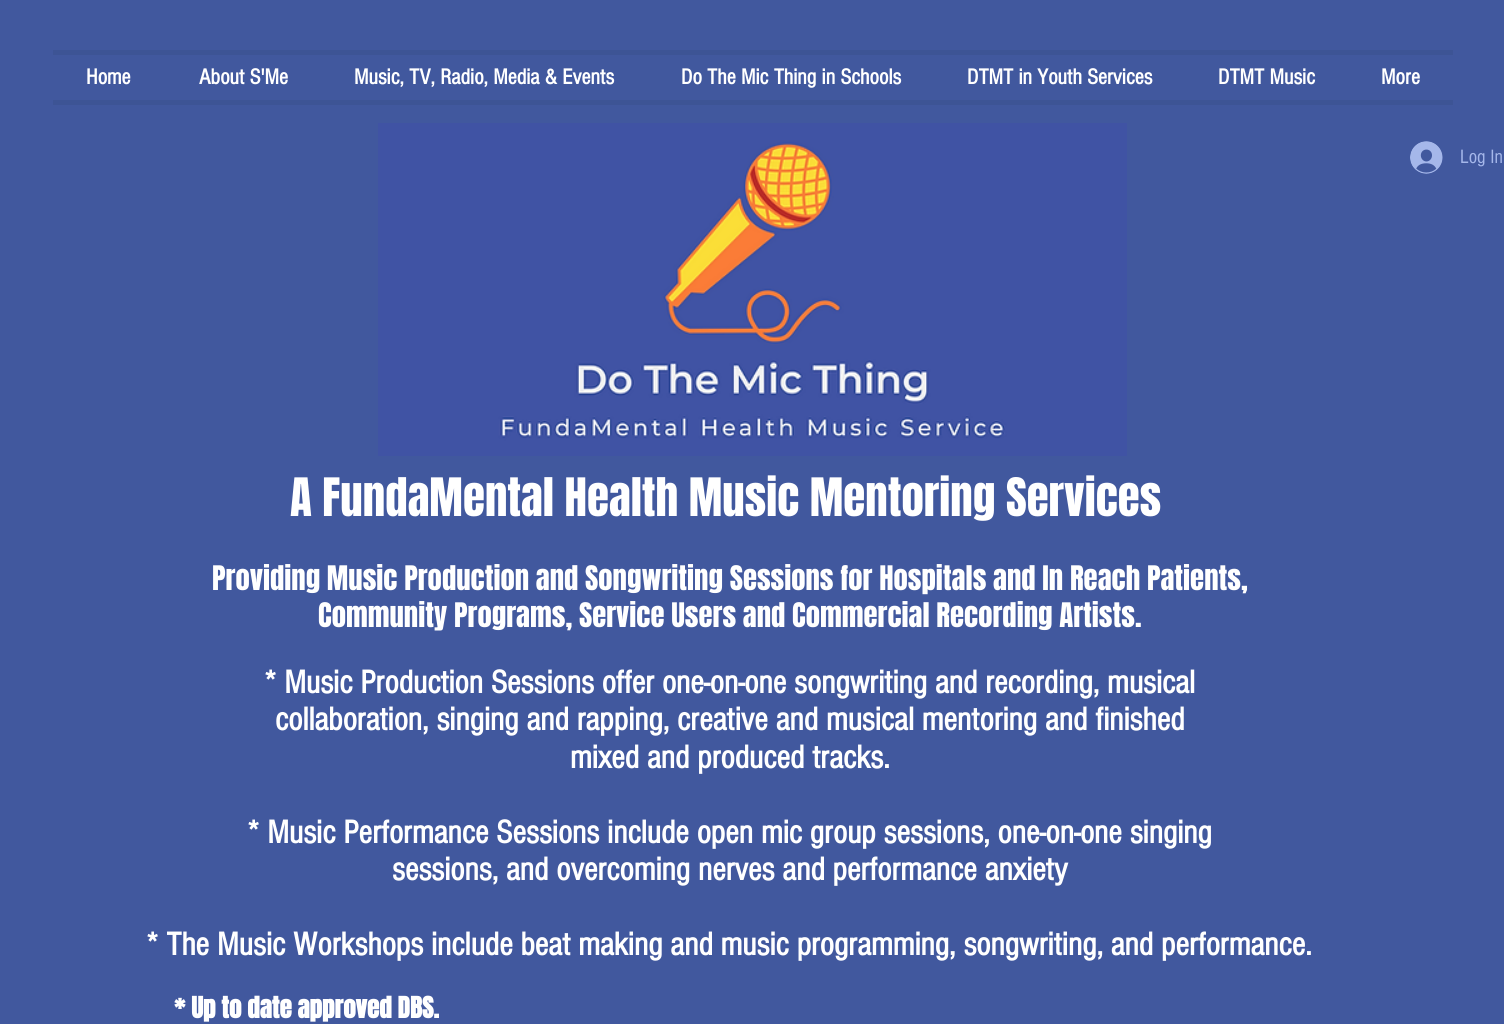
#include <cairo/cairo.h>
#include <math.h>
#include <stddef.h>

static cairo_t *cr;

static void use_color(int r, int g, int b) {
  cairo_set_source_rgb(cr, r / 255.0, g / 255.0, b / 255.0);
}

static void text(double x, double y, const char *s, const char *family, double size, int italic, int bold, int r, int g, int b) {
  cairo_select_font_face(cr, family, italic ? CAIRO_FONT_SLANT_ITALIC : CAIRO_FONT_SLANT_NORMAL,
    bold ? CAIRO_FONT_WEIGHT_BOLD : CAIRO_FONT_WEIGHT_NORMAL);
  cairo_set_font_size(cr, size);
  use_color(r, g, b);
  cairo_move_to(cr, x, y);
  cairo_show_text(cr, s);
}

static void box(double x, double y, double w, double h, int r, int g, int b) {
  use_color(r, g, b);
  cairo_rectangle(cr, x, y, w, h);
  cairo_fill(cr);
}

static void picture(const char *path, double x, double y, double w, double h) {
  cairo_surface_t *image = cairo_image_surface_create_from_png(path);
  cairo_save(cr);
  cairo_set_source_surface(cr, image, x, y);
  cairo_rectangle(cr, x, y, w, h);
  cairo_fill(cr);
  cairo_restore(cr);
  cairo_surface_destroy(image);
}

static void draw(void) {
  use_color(65, 88, 158);
  cairo_paint(cr);
  box(53, 50, 1400, 5, 61, 84, 149);
  box(53, 100, 1400, 5, 61, 84, 149);
  picture("img_01.png", 378, 123, 749, 333);
  picture("img_02.png", 1410, 141, 33, 33);
  text(86, 84, "Home", "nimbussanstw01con", 22.5, 0, 1, 255, 255, 255);
  text(199, 84, "About S'Me", "nimbussanstw01con", 22.5, 0, 1, 255, 255, 255);
  text(354, 84, "Music, TV, Radio, Media & Events", "nimbussanstw01con", 22.5, 0, 1, 255, 255, 255);
  text(681, 84, "Do The Mic Thing in Schools", "nimbussanstw01con", 22.5, 0, 1, 255, 255, 255);
  text(967, 84, "DTMT in Youth Services", "nimbussanstw01con", 22.5, 0, 1, 255, 255, 255);
  text(1218, 84, "DTMT Music", "nimbussanstw01con", 22.5, 0, 1, 255, 255, 255);
  text(1381, 84, "More", "nimbussanstw01con", 22.5, 0, 1, 255, 255, 255);
  text(1460, 163, "Log In", "nimbussanstw01con", 20, 0, 0, 165, 183, 234);
  text(290, 516, "A FundaMental Health Music Mentoring Services", "Anton", 45, 0, 0, 255, 255, 255);
  text(212, 590, "Providing Music Production and Songwriting Sessions for Hospitals and In Reach Patients,", "Anton", 28.75, 0, 0, 255, 255, 255);
  text(318, 627, "Community Programs, Service Users and Commercial Recording Artists.", "Anton", 28.75, 0, 0, 255, 255, 255);
  text(264, 693, "* Music Production Sessions offer one-on-one songwriting and recording, musical", "nimbussanstw01con", 33.75, 0, 1, 255, 255, 255);
  text(275, 730, "collaboration, singing and rapping, creative and musical mentoring and finished", "nimbussanstw01con", 33.75, 0, 1, 255, 255, 255);
  text(570, 768, "mixed and produced tracks.", "nimbussanstw01con", 33.75, 0, 1, 255, 255, 255);
  text(247, 843, "* Music Performance Sessions include open mic group sessions, one-on-one singing", "nimbussanstw01con", 33.75, 0, 1, 255, 255, 255);
  text(392, 880, "sessions, and overcoming nerves and performance anxiety", "nimbussanstw01con", 33.75, 0, 1, 255, 255, 255);
  text(146, 955, "* The Music Workshops include beat making and music programming, songwriting, and performance.", "nimbussanstw01con", 33.75, 0, 1, 255, 255, 255);
  text(174, 1018, "* Up to date approved DBS.", "Anton", 25, 0, 1, 255, 255, 255);
}

int main(void) {
  cairo_surface_t *surface = cairo_image_surface_create(CAIRO_FORMAT_RGB24, 1504, 1024);
  cr = cairo_create(surface);
  cairo_font_options_t *options = cairo_font_options_create();
  cairo_font_options_set_hint_metrics(options, CAIRO_HINT_METRICS_OFF);
  cairo_font_options_set_hint_style(options, CAIRO_HINT_STYLE_NONE);
  cairo_set_font_options(cr, options);
  cairo_set_miter_limit(cr, 4);
  draw();
  cairo_surface_write_to_png(surface, "out.png");
  cairo_font_options_destroy(options);
  cairo_destroy(cr);
  cairo_surface_destroy(surface);
  return 0;
}
